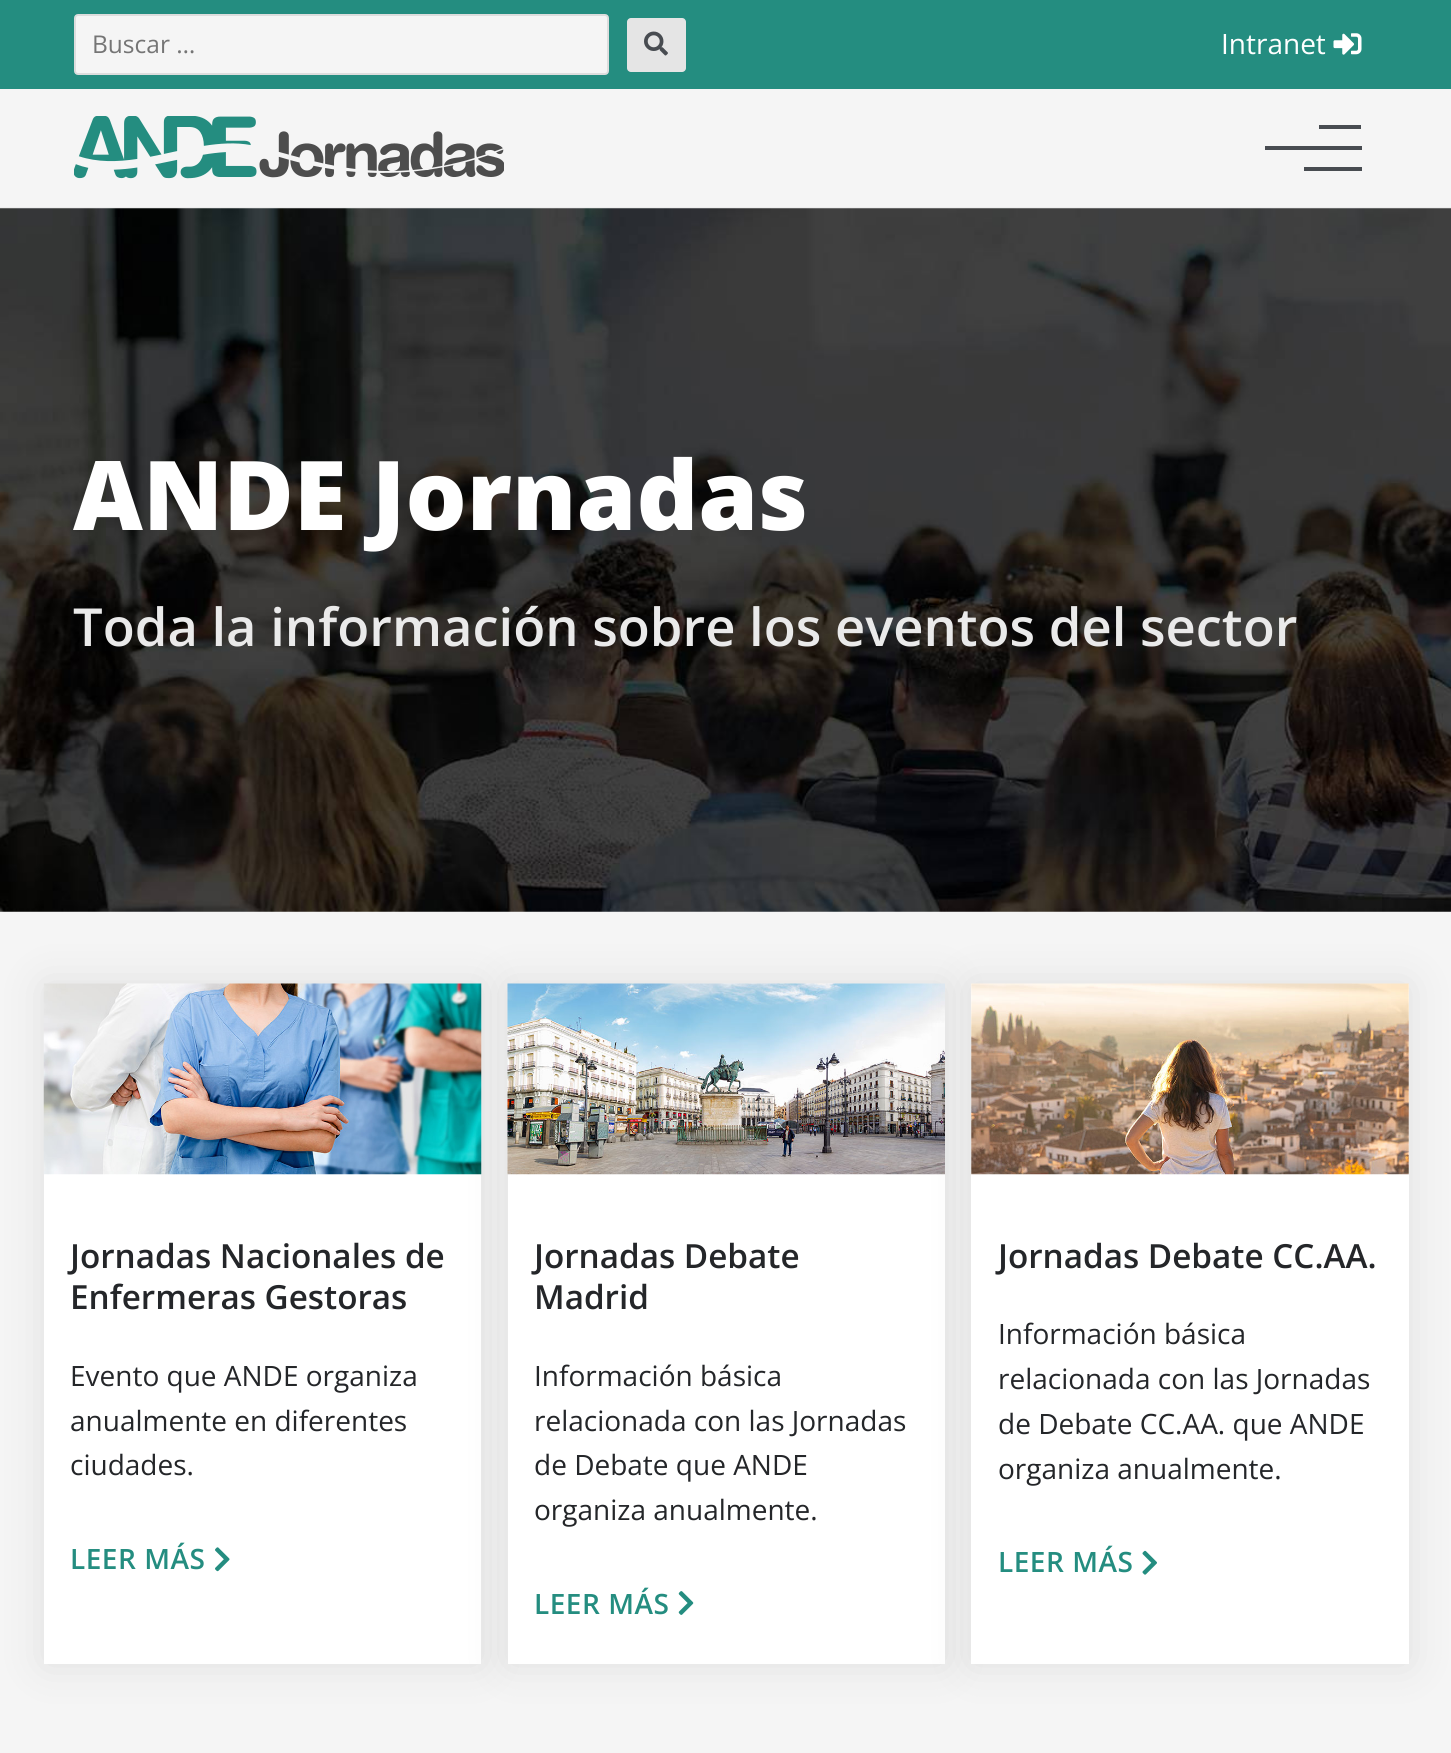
#include <cairo/cairo.h>
#include <math.h>
#include <stddef.h>

static cairo_t *cr;

static void use_color(int r, int g, int b) {
  cairo_set_source_rgb(cr, r / 255.0, g / 255.0, b / 255.0);
}

static void text(double x, double y, const char *s, const char *family, double size, int italic, int bold, int r, int g, int b) {
  cairo_select_font_face(cr, family, italic ? CAIRO_FONT_SLANT_ITALIC : CAIRO_FONT_SLANT_NORMAL,
    bold ? CAIRO_FONT_WEIGHT_BOLD : CAIRO_FONT_WEIGHT_NORMAL);
  cairo_set_font_size(cr, size);
  use_color(r, g, b);
  cairo_move_to(cr, x, y);
  cairo_show_text(cr, s);
}

static void spaced_text(double x, double y, const char *s, double letter, double word) {
  cairo_move_to(cr, x, y);
  while (*s) {
    char ch[5] = {0};
    int n = 0;
    do ch[n++] = *s++; while ((*s & 0xC0) == 0x80);
    cairo_show_text(cr, ch);
    cairo_rel_move_to(cr, letter + word * (*ch == ' '), 0);
  }
}

static void box(double x, double y, double w, double h, int r, int g, int b) {
  use_color(r, g, b);
  cairo_rectangle(cr, x, y, w, h);
  cairo_fill(cr);
}

static void round_rect(double x, double y, double w, double h, double r) {
  cairo_new_sub_path(cr);
  cairo_arc(cr, x + w - r, y + h - r, r, 0, M_PI / 2);
  cairo_arc(cr, x + r, y + h - r, r, M_PI / 2, M_PI);
  cairo_arc(cr, x + r, y + r, r, M_PI, 1.5 * M_PI);
  cairo_arc(cr, x + w - r, y + r, r, 1.5 * M_PI, 2 * M_PI);
  cairo_close_path(cr);
}

static void shadow(double x, double y, double w, double h, double r, double blur, double alpha) {
  cairo_push_group_with_content(cr, CAIRO_CONTENT_ALPHA);
  cairo_set_operator(cr, CAIRO_OPERATOR_SOURCE);
  for (int i = 15; i >= -15 && fmin(w, h) + blur * i / 3 > 0; i -= 2) {
    double e = blur * i / 6;
    cairo_set_source_rgba(cr, 0, 0, 0, alpha * erfc((i - 1) / 8.5) / 2);
    round_rect(x - e, y - e, w + 2 * e, h + 2 * e, fmax(0, fmin(r + e + blur * .6, fmin(w, h) / 2 + e)));
    cairo_fill(cr);
  }
  cairo_pattern_t *soft = cairo_pop_group(cr);
  cairo_mask(cr, soft);
  cairo_pattern_destroy(soft);
}

static void picture(const char *path, double x, double y, double w, double h) {
  cairo_surface_t *image = cairo_image_surface_create_from_png(path);
  cairo_save(cr);
  cairo_set_source_surface(cr, image, x, y);
  cairo_rectangle(cr, x, y, w, h);
  cairo_fill(cr);
  cairo_restore(cr);
  cairo_surface_destroy(image);
}

static void draw(void) {
  use_color(245, 245, 245);
  cairo_paint(cr);
  box(0, 0, 1451, 89, 36, 141, 128);
  use_color(245, 245, 245);
  round_rect(75, 15, 533, 59, 3);
  cairo_fill_preserve(cr);
  use_color(221, 221, 221);
  cairo_stroke(cr);
  use_color(229, 229, 229);
  round_rect(627, 18, 59, 54, 4);
  cairo_fill(cr);
  picture("img_01.png", 644, 31, 24, 25);
  picture("img_02.png", 1333, 33, 29, 22);
  box(0, 207, 1451, 2, 238, 238, 238);
  picture("img_03.png", 74, 116, 430, 63);
  box(1304, 167, 58, 4, 72, 76, 81);
  box(1319, 125, 42, 4, 72, 76, 81);
  box(1265, 146, 97, 4, 72, 76, 81);
  picture("img_04.png", 0, 208, 1451, 704);
  use_color(0, 0, 0);
  shadow(44, 984, 437, 680, 0, 22, 0.09);
  box(44, 1174, 437, 490, 255, 255, 255);
  picture("img_05.png", 43, 983, 439, 192);
  picture("img_06.png", 215, 1547, 15, 25);
  use_color(0, 0, 0);
  shadow(508, 984, 437, 680, 0, 22, 0.09);
  box(508, 1174, 437, 490, 255, 255, 255);
  picture("img_07.png", 507, 983, 438, 192);
  picture("img_08.png", 678, 1591, 16, 24);
  use_color(0, 0, 0);
  shadow(971, 984, 438, 680, 0, 22, 0.09);
  box(971, 984, 438, 680, 255, 255, 255);
  picture("img_09.png", 971, 983, 438, 192);
  picture("img_10.png", 1142, 1550, 15, 25);
  text(92, 53, "Buscar …", "Open Sans", 24.5, 0, 0, 117, 117, 117);
  text(1221, 54, "Intranet", "Open Sans", 28, 0, 0, 255, 255, 255);
  text(73, 530, "ANDE Jornadas", "Open Sans ExtraBold", 96.25, 0, 0, 255, 255, 255);
  text(73, 646, "Toda la información sobre los eventos del sector", "Open Sans SemiBold", 52.5, 0, 0, 234, 234, 234);
  text(70, 1268, "Jornadas Nacionales de", "Open Sans SemiBold", 33.25, 0, 0, 36, 38, 41);
  text(70, 1309, "Enfermeras Gestoras", "Open Sans SemiBold", 33.25, 0, 0, 36, 38, 41);
  text(70, 1386, "Evento que ANDE organiza", "Open Sans", 28, 0, 0, 36, 38, 41);
  text(70, 1431, "anualmente en diferentes", "Open Sans", 28, 0, 0, 36, 38, 41);
  text(70, 1475, "ciudades.", "Open Sans", 28, 0, 0, 36, 38, 41);
  cairo_select_font_face(cr, "Open Sans SemiBold", CAIRO_FONT_SLANT_NORMAL, CAIRO_FONT_WEIGHT_NORMAL);
  use_color(36, 141, 128);
  spaced_text(70, 1569, "LEER MÁS", 0.5, 0);
  text(534, 1268, "Jornadas Debate", "Open Sans SemiBold", 33.25, 0, 0, 36, 38, 41);
  text(534, 1309, "Madrid", "Open Sans SemiBold", 33.25, 0, 0, 36, 38, 41);
  text(534, 1386, "Información básica", "Open Sans", 28, 0, 0, 36, 38, 41);
  text(534, 1431, "relacionada con las Jornadas", "Open Sans", 28, 0, 0, 36, 38, 41);
  text(534, 1475, "de Debate que ANDE", "Open Sans", 28, 0, 0, 36, 38, 41);
  text(534, 1520, "organiza anualmente.", "Open Sans", 28, 0, 0, 36, 38, 41);
  cairo_select_font_face(cr, "Open Sans SemiBold", CAIRO_FONT_SLANT_NORMAL, CAIRO_FONT_WEIGHT_NORMAL);
  use_color(36, 141, 128);
  spaced_text(534, 1614, "LEER MÁS", 0.5, 0);
  text(998, 1268, "Jornadas Debate CC.AA.", "Open Sans SemiBold", 33.25, 0, 0, 36, 38, 41);
  text(998, 1344, "Información básica", "Open Sans", 28, 0, 0, 36, 38, 41);
  text(998, 1389, "relacionada con las Jornadas", "Open Sans", 28, 0, 0, 36, 38, 41);
  text(998, 1434, "de Debate CC.AA. que ANDE", "Open Sans", 28, 0, 0, 36, 38, 41);
  text(998, 1479, "organiza anualmente.", "Open Sans", 28, 0, 0, 36, 38, 41);
  cairo_select_font_face(cr, "Open Sans SemiBold", CAIRO_FONT_SLANT_NORMAL, CAIRO_FONT_WEIGHT_NORMAL);
  use_color(36, 141, 128);
  spaced_text(998, 1572, "LEER MÁS", 0.5, 0);
}

int main(void) {
  cairo_surface_t *surface = cairo_image_surface_create(CAIRO_FORMAT_RGB24, 1451, 1753);
  cr = cairo_create(surface);
  cairo_font_options_t *options = cairo_font_options_create();
  cairo_font_options_set_hint_metrics(options, CAIRO_HINT_METRICS_OFF);
  cairo_font_options_set_hint_style(options, CAIRO_HINT_STYLE_NONE);
  cairo_set_font_options(cr, options);
  cairo_set_miter_limit(cr, 4);
  draw();
  cairo_surface_write_to_png(surface, "out.png");
  cairo_font_options_destroy(options);
  cairo_destroy(cr);
  cairo_surface_destroy(surface);
  return 0;
}
